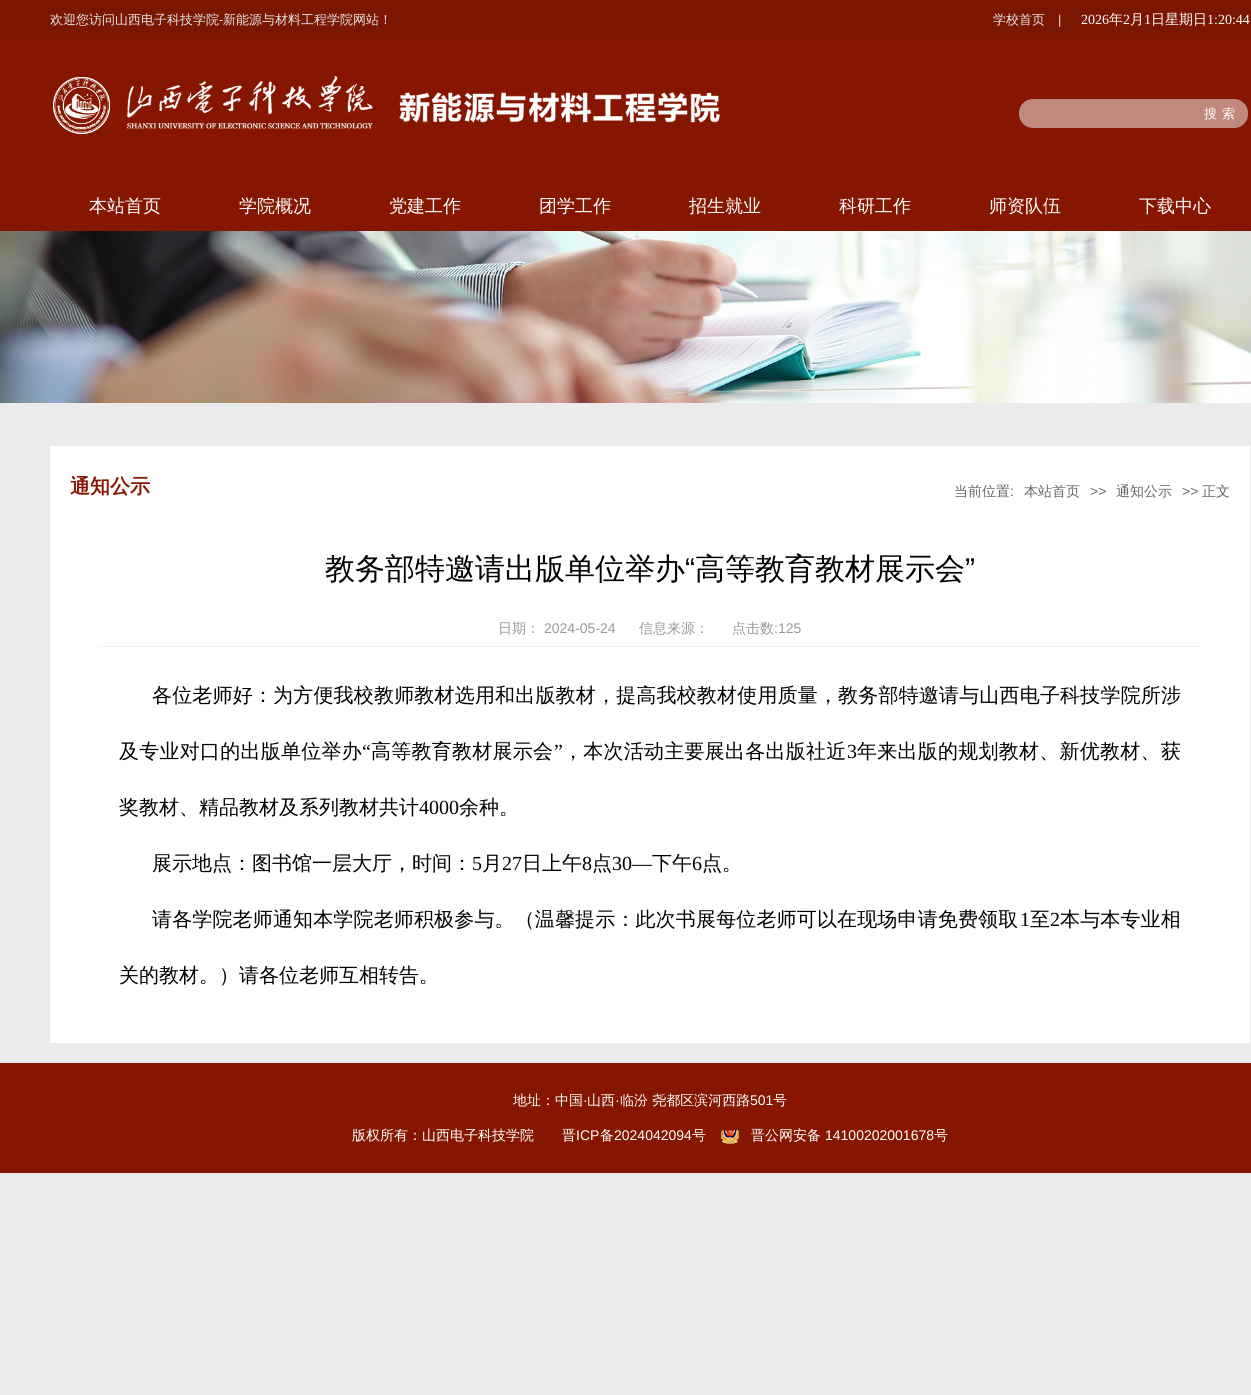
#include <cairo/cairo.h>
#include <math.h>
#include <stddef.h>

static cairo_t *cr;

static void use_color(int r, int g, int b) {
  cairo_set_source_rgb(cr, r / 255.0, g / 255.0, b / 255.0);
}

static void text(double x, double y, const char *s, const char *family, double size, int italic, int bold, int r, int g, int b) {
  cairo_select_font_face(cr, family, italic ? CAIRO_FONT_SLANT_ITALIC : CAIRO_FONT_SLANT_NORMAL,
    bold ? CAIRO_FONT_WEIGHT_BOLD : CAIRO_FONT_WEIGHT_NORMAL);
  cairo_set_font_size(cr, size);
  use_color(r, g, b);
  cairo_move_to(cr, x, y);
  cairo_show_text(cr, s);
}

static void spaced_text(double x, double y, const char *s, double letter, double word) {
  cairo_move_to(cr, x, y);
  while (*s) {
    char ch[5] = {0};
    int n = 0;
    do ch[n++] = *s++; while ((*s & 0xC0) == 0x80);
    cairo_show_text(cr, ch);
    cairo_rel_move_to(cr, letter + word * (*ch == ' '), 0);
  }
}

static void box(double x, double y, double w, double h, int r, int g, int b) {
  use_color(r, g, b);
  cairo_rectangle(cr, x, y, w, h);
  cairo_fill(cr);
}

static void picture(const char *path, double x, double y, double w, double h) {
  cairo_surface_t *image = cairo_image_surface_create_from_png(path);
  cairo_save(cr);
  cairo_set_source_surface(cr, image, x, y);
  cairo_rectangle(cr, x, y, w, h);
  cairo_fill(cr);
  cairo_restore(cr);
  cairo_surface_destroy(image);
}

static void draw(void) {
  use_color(235, 235, 235);
  cairo_paint(cr);
  box(0, 0, 1251, 40, 123, 22, 1);
  box(0, 40, 1251, 140, 134, 22, 0);
  picture("img_01.png", 53, 76, 667, 59);
  picture("img_02.png", 1019, 99, 229, 29);
  box(0, 181, 1251, 50, 134, 22, 0);
  box(0, 180, 1251, 1, 123, 22, 1);
  picture("img_03.png", 0, 231, 1251, 172);
  box(50, 446, 1200, 597, 255, 255, 255);
  cairo_new_path(cr);
  cairo_move_to(cr, 99, 646.5);
  cairo_line_to(cr, 1201, 646.5);
  use_color(231, 231, 231);
  cairo_set_line_width(cr, 1);
  cairo_set_dash(cr, (double[]){1, 1}, 2, 0);
  cairo_stroke(cr);
  box(0, 1063, 1251, 110, 134, 22, 0);
  picture("img_04.png", 721, 1130, 18, 14);
  text(50, 24, "欢迎您访问山西电子科技学院", "WenQuanYi Zen Hei Medium", 13, 0, 0, 229, 229, 229);
  text(219, 24, "-", "Liberation Sans", 13, 0, 0, 229, 229, 229);
  text(223, 24, "新能源与材料工程学院网站！", "WenQuanYi Zen Hei Medium", 13, 0, 0, 229, 229, 229);
  text(993, 24, "学校首页", "WenQuanYi Zen Hei Medium", 13, 0, 0, 229, 229, 229);
  text(1058, 24, "|", "Liberation Sans", 13, 0, 0, 229, 229, 229);
  text(1081, 24, "2026", "Liberation Serif", 14, 0, 0, 255, 255, 255);
  text(1109, 24, "年", "WenQuanYi Zen Hei Medium", 14, 0, 0, 255, 255, 255);
  text(1123, 24, "2", "Liberation Serif", 14, 0, 0, 255, 255, 255);
  text(1130, 24, "月", "WenQuanYi Zen Hei Medium", 14, 0, 0, 255, 255, 255);
  text(1144, 24, "1", "Liberation Serif", 14, 0, 0, 255, 255, 255);
  text(1151, 24, "日星期日", "WenQuanYi Zen Hei Medium", 14, 0, 0, 255, 255, 255);
  text(1207, 24, "1:20:44", "Liberation Serif", 14, 0, 0, 255, 255, 255);
  cairo_select_font_face(cr, "WenQuanYi Zen Hei Medium", CAIRO_FONT_SLANT_NORMAL, CAIRO_FONT_WEIGHT_NORMAL);
  cairo_set_font_size(cr, 13);
  spaced_text(1204, 118, "搜索", 5, 0);
  text(89, 212, "本站首页", "WenQuanYi Zen Hei Medium", 18, 0, 0, 255, 255, 255);
  text(239, 212, "学院概况", "WenQuanYi Zen Hei Medium", 18, 0, 0, 255, 255, 255);
  text(389, 212, "党建工作", "WenQuanYi Zen Hei Medium", 18, 0, 0, 255, 255, 255);
  text(539, 212, "团学工作", "WenQuanYi Zen Hei Medium", 18, 0, 0, 255, 255, 255);
  text(689, 212, "招生就业", "WenQuanYi Zen Hei Medium", 18, 0, 0, 255, 255, 255);
  text(839, 212, "科研工作", "WenQuanYi Zen Hei Medium", 18, 0, 0, 255, 255, 255);
  text(989, 212, "师资队伍", "WenQuanYi Zen Hei Medium", 18, 0, 0, 255, 255, 255);
  text(1139, 212, "下载中心", "WenQuanYi Zen Hei Medium", 18, 0, 0, 255, 255, 255);
  text(70, 493, "通知公示", "WenQuanYi Zen Hei", 20, 0, 1, 134, 22, 0);
  text(954, 496, "当前位置", "WenQuanYi Zen Hei Medium", 14, 0, 0, 102, 102, 102);
  text(1010, 496, ":", "Liberation Sans", 14, 0, 0, 102, 102, 102);
  text(1024, 496, "本站首页", "WenQuanYi Zen Hei Medium", 14, 0, 0, 102, 102, 102);
  text(1090, 496, ">>", "Liberation Sans", 14, 0, 0, 102, 102, 102);
  text(1116, 496, "通知公示", "WenQuanYi Zen Hei Medium", 14, 0, 0, 102, 102, 102);
  text(1182, 496, ">>", "Liberation Sans", 14, 0, 0, 102, 102, 102);
  text(1202, 496, "正文", "WenQuanYi Zen Hei Medium", 14, 0, 0, 102, 102, 102);
  text(325, 579, "教务部特邀请出版单位举办", "WenQuanYi Zen Hei Medium", 30, 0, 0, 0, 0, 0);
  text(685, 579, "“", "Liberation Sans", 30, 0, 0, 0, 0, 0);
  text(695, 579, "高等教育教材展示会", "WenQuanYi Zen Hei Medium", 30, 0, 0, 0, 0, 0);
  text(965, 579, "”", "Liberation Sans", 30, 0, 0, 0, 0, 0);
  text(498, 633, "日期：", "WenQuanYi Zen Hei Medium", 14, 0, 0, 153, 153, 153);
  text(544, 633, "2024-05-24", "Liberation Sans", 14, 0, 0, 153, 153, 153);
  text(639, 633, "信息来源：", "WenQuanYi Zen Hei Medium", 14, 0, 0, 153, 153, 153);
  text(732, 633, "点击数", "WenQuanYi Zen Hei Medium", 14, 0, 0, 153, 153, 153);
  text(774, 633, ":125", "Liberation Sans", 14, 0, 0, 153, 153, 153);
  cairo_select_font_face(cr, "WenQuanYi Zen Hei Medium", CAIRO_FONT_SLANT_NORMAL, CAIRO_FONT_WEIGHT_NORMAL);
  cairo_set_font_size(cr, 20);
  use_color(0, 0, 0);
  spaced_text(152, 702, "各位老师好：为方便我校教师教材选用和出版教材，提高我校教材使用质量，教务部特邀请与山西电子科技学院所涉", 0.18, 0);
  spaced_text(119, 758, "及专业对口的出版单位举办", 0.25, 0);
  cairo_select_font_face(cr, "Liberation Serif", CAIRO_FONT_SLANT_NORMAL, CAIRO_FONT_WEIGHT_NORMAL);
  spaced_text(362, 758, "“", 0.25, 0);
  cairo_select_font_face(cr, "WenQuanYi Zen Hei Medium", CAIRO_FONT_SLANT_NORMAL, CAIRO_FONT_WEIGHT_NORMAL);
  spaced_text(371, 758, "高等教育教材展示会", 0.25, 0);
  cairo_select_font_face(cr, "Liberation Serif", CAIRO_FONT_SLANT_NORMAL, CAIRO_FONT_WEIGHT_NORMAL);
  spaced_text(554, 758, "”", 0.25, 0);
  cairo_select_font_face(cr, "WenQuanYi Zen Hei Medium", CAIRO_FONT_SLANT_NORMAL, CAIRO_FONT_WEIGHT_NORMAL);
  spaced_text(563, 758, "，本次活动主要展出各出版社近", 0.25, 0);
  cairo_select_font_face(cr, "Liberation Serif", CAIRO_FONT_SLANT_NORMAL, CAIRO_FONT_WEIGHT_NORMAL);
  spaced_text(847, 758, "3", 0.25, 0);
  cairo_select_font_face(cr, "WenQuanYi Zen Hei Medium", CAIRO_FONT_SLANT_NORMAL, CAIRO_FONT_WEIGHT_NORMAL);
  spaced_text(857, 758, "年来出版的规划教材、新优教材、获", 0.25, 0);
  text(119, 814, "奖教材、精品教材及系列教材共计", "WenQuanYi Zen Hei Medium", 20, 0, 0, 0, 0, 0);
  text(419, 814, "4000", "Liberation Serif", 20, 0, 0, 0, 0, 0);
  text(459, 814, "余种。", "WenQuanYi Zen Hei Medium", 20, 0, 0, 0, 0, 0);
  text(152, 870, "展示地点：图书馆一层大厅，时间：", "WenQuanYi Zen Hei Medium", 20, 0, 0, 0, 0, 0);
  text(472, 870, "5", "Liberation Serif", 20, 0, 0, 0, 0, 0);
  text(482, 870, "月", "WenQuanYi Zen Hei Medium", 20, 0, 0, 0, 0, 0);
  text(502, 870, "27", "Liberation Serif", 20, 0, 0, 0, 0, 0);
  text(522, 870, "日上午", "WenQuanYi Zen Hei Medium", 20, 0, 0, 0, 0, 0);
  text(582, 870, "8", "Liberation Serif", 20, 0, 0, 0, 0, 0);
  text(592, 870, "点", "WenQuanYi Zen Hei Medium", 20, 0, 0, 0, 0, 0);
  text(612, 870, "30—", "Liberation Serif", 20, 0, 0, 0, 0, 0);
  text(652, 870, "下午", "WenQuanYi Zen Hei Medium", 20, 0, 0, 0, 0, 0);
  text(692, 870, "6", "Liberation Serif", 20, 0, 0, 0, 0, 0);
  text(702, 870, "点。", "WenQuanYi Zen Hei Medium", 20, 0, 0, 0, 0, 0);
  spaced_text(152, 926, "请各学院老师通知本学院老师积极参与。（温馨提示：此次书展每位老师可以在现场申请免费领取", 0.15, 0);
  cairo_select_font_face(cr, "Liberation Serif", CAIRO_FONT_SLANT_NORMAL, CAIRO_FONT_WEIGHT_NORMAL);
  spaced_text(1020, 926, "1", 0.15, 0);
  cairo_select_font_face(cr, "WenQuanYi Zen Hei Medium", CAIRO_FONT_SLANT_NORMAL, CAIRO_FONT_WEIGHT_NORMAL);
  spaced_text(1030, 926, "至", 0.15, 0);
  cairo_select_font_face(cr, "Liberation Serif", CAIRO_FONT_SLANT_NORMAL, CAIRO_FONT_WEIGHT_NORMAL);
  spaced_text(1050, 926, "2", 0.15, 0);
  cairo_select_font_face(cr, "WenQuanYi Zen Hei Medium", CAIRO_FONT_SLANT_NORMAL, CAIRO_FONT_WEIGHT_NORMAL);
  spaced_text(1060, 926, "本与本专业相", 0.15, 0);
  text(119, 982, "关的教材。）请各位老师互相转告。", "WenQuanYi Zen Hei Medium", 20, 0, 0, 0, 0, 0);
  text(513, 1105, "地址：中国", "WenQuanYi Zen Hei Medium", 14, 0, 0, 255, 255, 255);
  text(583, 1105, "·", "Liberation Sans", 14, 0, 0, 255, 255, 255);
  text(587, 1105, "山西", "WenQuanYi Zen Hei Medium", 14, 0, 0, 255, 255, 255);
  text(615, 1105, "·", "Liberation Sans", 14, 0, 0, 255, 255, 255);
  text(620, 1105, "临汾 尧都区滨河西路", "WenQuanYi Zen Hei Medium", 14, 0, 0, 255, 255, 255);
  text(750, 1105, "501", "Liberation Sans", 14, 0, 0, 255, 255, 255);
  text(773, 1105, "号", "WenQuanYi Zen Hei Medium", 14, 0, 0, 255, 255, 255);
  text(352, 1140, "版权所有：山西电子科技学院", "WenQuanYi Zen Hei Medium", 14, 0, 0, 255, 255, 255);
  text(562, 1140, "晋", "WenQuanYi Zen Hei Medium", 14, 0, 0, 255, 255, 255);
  text(576, 1140, "ICP", "Liberation Sans", 14, 0, 0, 255, 255, 255);
  text(600, 1140, "备", "WenQuanYi Zen Hei Medium", 14, 0, 0, 255, 255, 255);
  text(614, 1140, "2024042094", "Liberation Sans", 14, 0, 0, 255, 255, 255);
  text(692, 1140, "号", "WenQuanYi Zen Hei Medium", 14, 0, 0, 255, 255, 255);
  text(751, 1140, "晋公网安备", "WenQuanYi Zen Hei Medium", 14, 0, 0, 255, 255, 255);
  text(825, 1140, "14100202001678", "Liberation Sans", 14, 0, 0, 255, 255, 255);
  text(934, 1140, "号", "WenQuanYi Zen Hei Medium", 14, 0, 0, 255, 255, 255);
}

int main(void) {
  cairo_surface_t *surface = cairo_image_surface_create(CAIRO_FORMAT_RGB24, 1251, 1395);
  cr = cairo_create(surface);
  cairo_font_options_t *options = cairo_font_options_create();
  cairo_font_options_set_hint_metrics(options, CAIRO_HINT_METRICS_OFF);
  cairo_font_options_set_hint_style(options, CAIRO_HINT_STYLE_NONE);
  cairo_set_font_options(cr, options);
  cairo_set_miter_limit(cr, 4);
  draw();
  cairo_surface_write_to_png(surface, "out.png");
  cairo_font_options_destroy(options);
  cairo_destroy(cr);
  cairo_surface_destroy(surface);
  return 0;
}
